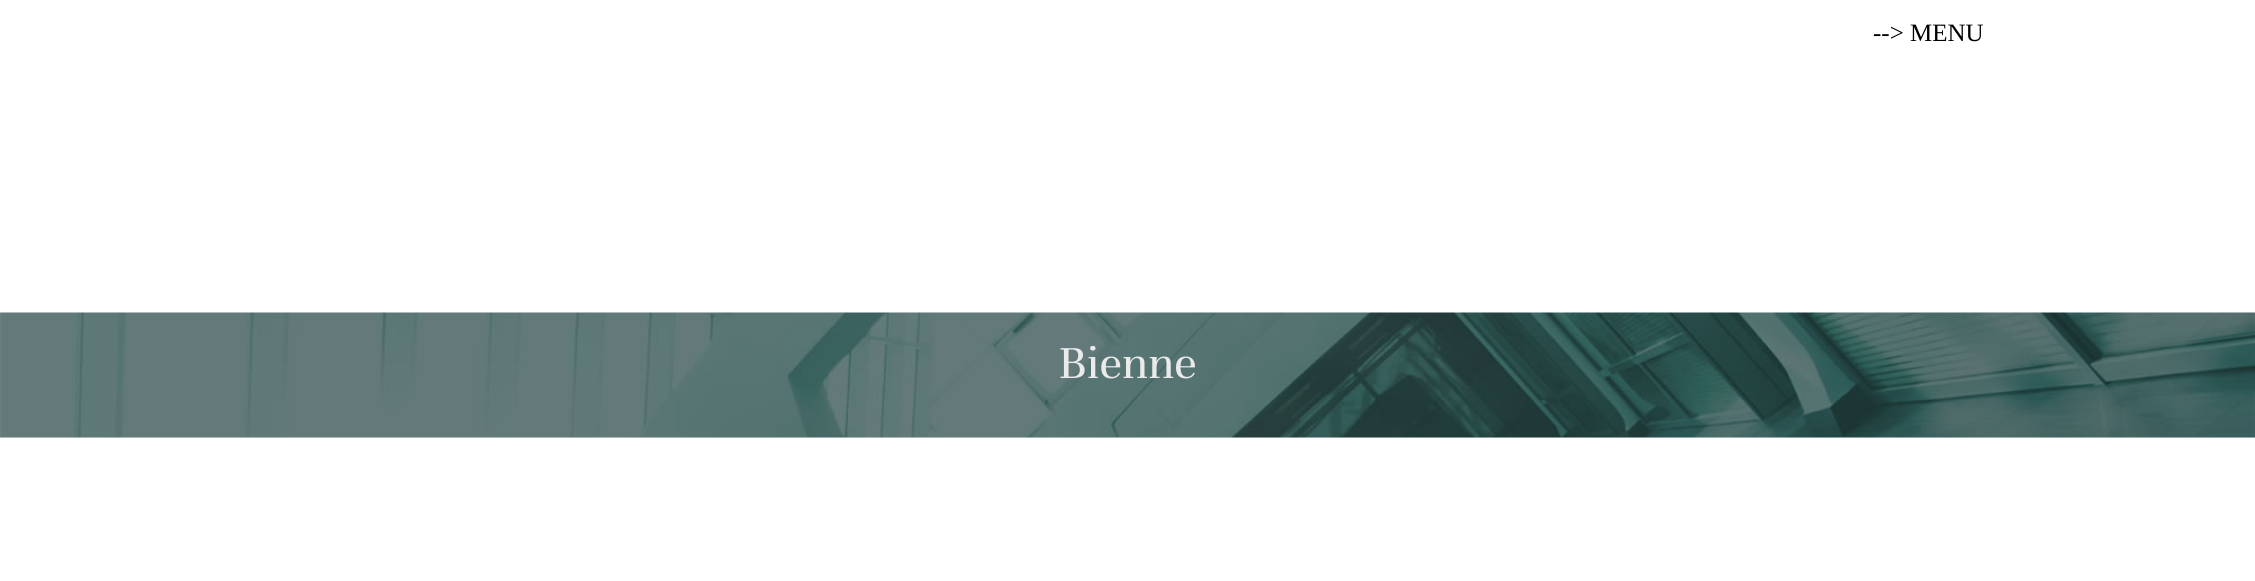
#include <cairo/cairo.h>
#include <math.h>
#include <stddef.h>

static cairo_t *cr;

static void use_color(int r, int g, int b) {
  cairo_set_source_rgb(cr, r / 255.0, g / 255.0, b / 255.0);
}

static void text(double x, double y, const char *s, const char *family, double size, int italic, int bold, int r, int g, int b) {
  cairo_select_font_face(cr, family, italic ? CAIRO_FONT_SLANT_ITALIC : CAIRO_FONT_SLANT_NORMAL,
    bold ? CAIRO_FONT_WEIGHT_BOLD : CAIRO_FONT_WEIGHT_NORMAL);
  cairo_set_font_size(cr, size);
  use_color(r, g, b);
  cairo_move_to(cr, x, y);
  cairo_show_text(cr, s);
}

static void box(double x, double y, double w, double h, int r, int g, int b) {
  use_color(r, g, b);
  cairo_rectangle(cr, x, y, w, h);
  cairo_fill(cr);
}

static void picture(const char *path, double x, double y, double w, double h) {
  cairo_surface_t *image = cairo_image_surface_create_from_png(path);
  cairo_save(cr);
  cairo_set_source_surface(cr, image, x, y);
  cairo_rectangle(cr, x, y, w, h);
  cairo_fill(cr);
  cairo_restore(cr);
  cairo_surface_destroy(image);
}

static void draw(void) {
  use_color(255, 255, 255);
  cairo_paint(cr);
  box(0, 437, 2255, 1, 247, 247, 247);
  picture("img_01.png", 0, 312, 2255, 126);
  text(1873, 41, "--> MENU", "Liberation Serif", 25, 0, 0, 0, 0, 0);
  text(1058, 378, "Bienne", "Unna", 50, 0, 0, 234, 234, 234);
}

int main(void) {
  cairo_surface_t *surface = cairo_image_surface_create(CAIRO_FORMAT_RGB24, 2255, 581);
  cr = cairo_create(surface);
  cairo_font_options_t *options = cairo_font_options_create();
  cairo_font_options_set_hint_metrics(options, CAIRO_HINT_METRICS_OFF);
  cairo_font_options_set_hint_style(options, CAIRO_HINT_STYLE_NONE);
  cairo_set_font_options(cr, options);
  cairo_set_miter_limit(cr, 4);
  draw();
  cairo_surface_write_to_png(surface, "out.png");
  cairo_font_options_destroy(options);
  cairo_destroy(cr);
  cairo_surface_destroy(surface);
  return 0;
}
